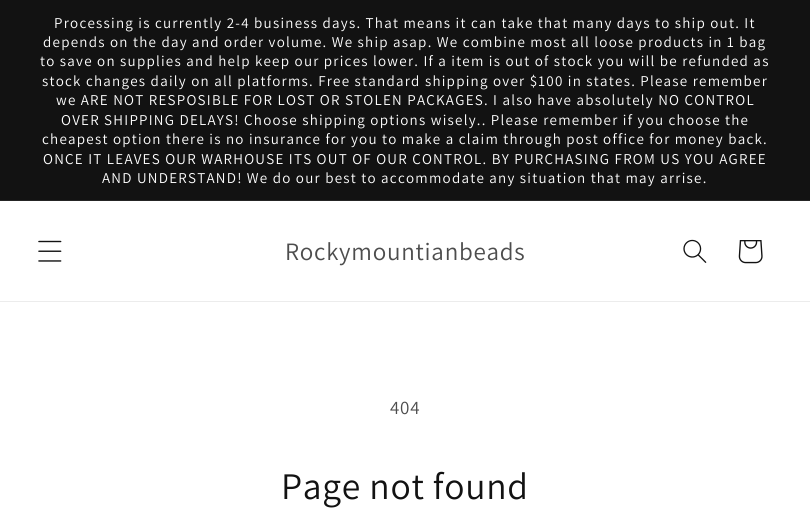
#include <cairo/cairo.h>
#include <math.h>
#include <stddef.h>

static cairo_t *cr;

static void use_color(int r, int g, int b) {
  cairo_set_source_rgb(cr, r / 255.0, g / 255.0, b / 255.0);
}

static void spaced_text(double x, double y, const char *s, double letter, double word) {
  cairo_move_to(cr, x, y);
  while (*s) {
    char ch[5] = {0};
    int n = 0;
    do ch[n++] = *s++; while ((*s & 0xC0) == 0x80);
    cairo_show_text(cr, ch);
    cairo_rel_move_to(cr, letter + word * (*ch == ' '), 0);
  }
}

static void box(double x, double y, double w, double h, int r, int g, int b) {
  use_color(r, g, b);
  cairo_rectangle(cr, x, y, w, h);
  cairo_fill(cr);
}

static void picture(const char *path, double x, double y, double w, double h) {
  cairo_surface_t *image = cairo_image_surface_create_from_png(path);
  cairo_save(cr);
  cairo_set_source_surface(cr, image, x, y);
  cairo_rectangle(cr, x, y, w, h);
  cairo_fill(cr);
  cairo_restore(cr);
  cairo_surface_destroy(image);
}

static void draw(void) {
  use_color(255, 255, 255);
  cairo_paint(cr);
  box(0, 0, 810, 200, 18, 18, 18);
  box(0, 200, 810, 1, 37, 37, 37);
  box(0, 301, 810, 1, 236, 236, 236);
  picture("img_01.png", 38, 240, 24, 22);
  picture("img_02.png", 683, 239, 24, 24);
  picture("img_03.png", 738, 240, 25, 24);
  cairo_select_font_face(cr, "Assistant", CAIRO_FONT_SLANT_NORMAL, CAIRO_FONT_WEIGHT_NORMAL);
  cairo_set_font_size(cr, 15);
  use_color(255, 255, 255);
  spaced_text(54, 28, "Processing is currently 2-4 business days. That means it can take that many days to ship out. It", 1.25, 0);
  spaced_text(43, 47, "depends on the day and order volume. We ship asap. We combine most all loose products in 1 bag", 1.25, 0);
  spaced_text(40, 66, "to save on supplies and help keep our prices lower. If a item is out of stock you will be refunded as", 1.25, 0);
  spaced_text(42, 86, "stock changes daily on all platforms. Free standard shipping over $100 in states. Please remember", 1.25, 0);
  spaced_text(56, 105, "we ARE NOT RESPOSIBLE FOR LOST OR STOLEN PACKAGES. I also have absolutely NO CONTROL", 1.25, 0);
  spaced_text(61, 125, "OVER SHIPPING DELAYS! Choose shipping options wisely.. Please remember if you choose the", 1.25, 0);
  spaced_text(42, 144, "cheapest option there is no insurance for you to make a claim through post office for money back.", 1.25, 0);
  spaced_text(43, 164, "ONCE IT LEAVES OUR WARHOUSE ITS OUT OF OUR CONTROL. BY PURCHASING FROM US YOU AGREE", 1.25, 0);
  spaced_text(102, 183, "AND UNDERSTAND! We do our best to accommodate any situation that may arrise.", 1.25, 0);
  cairo_set_font_size(cr, 25);
  use_color(77, 77, 77);
  spaced_text(285, 260, "Rockymountianbeads", 0.75, 0);
  cairo_set_font_size(cr, 19);
  spaced_text(390, 414, "404", 0.75, 0);
  cairo_set_font_size(cr, 37.5);
  use_color(18, 18, 18);
  spaced_text(281, 499, "Page not found", 0.75, 0);
}

int main(void) {
  cairo_surface_t *surface = cairo_image_surface_create(CAIRO_FORMAT_RGB24, 810, 515);
  cr = cairo_create(surface);
  cairo_font_options_t *options = cairo_font_options_create();
  cairo_font_options_set_hint_metrics(options, CAIRO_HINT_METRICS_OFF);
  cairo_font_options_set_hint_style(options, CAIRO_HINT_STYLE_NONE);
  cairo_set_font_options(cr, options);
  cairo_set_miter_limit(cr, 4);
  draw();
  cairo_surface_write_to_png(surface, "out.png");
  cairo_font_options_destroy(options);
  cairo_destroy(cr);
  cairo_surface_destroy(surface);
  return 0;
}
